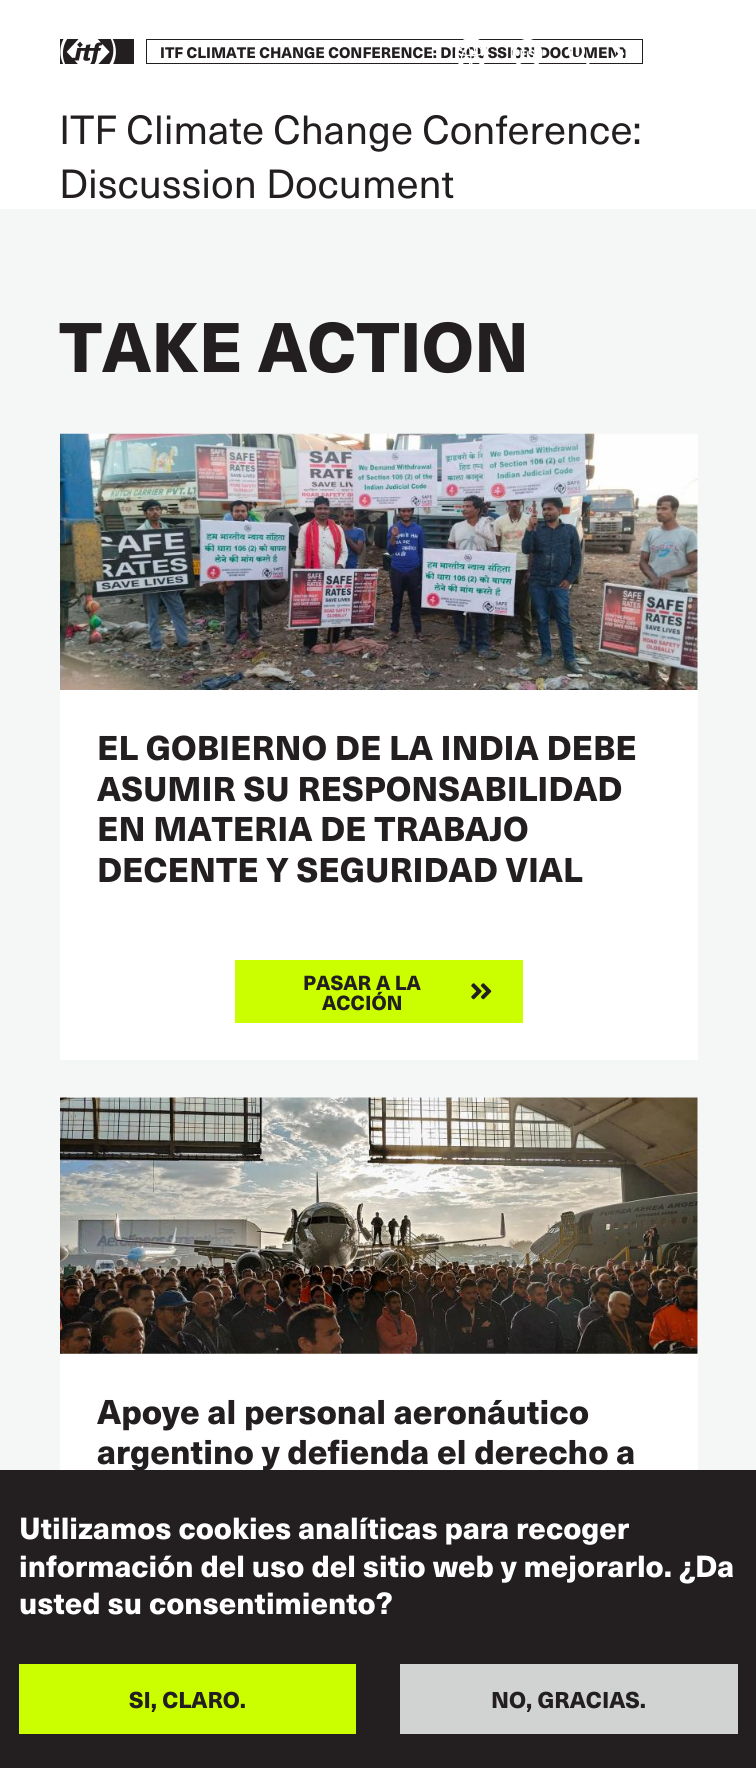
#include <cairo/cairo.h>
#include <math.h>
#include <stddef.h>

static cairo_t *cr;

static void use_color(int r, int g, int b) {
  cairo_set_source_rgb(cr, r / 255.0, g / 255.0, b / 255.0);
}

static void text(double x, double y, const char *s, const char *family, double size, int italic, int bold, int r, int g, int b) {
  cairo_select_font_face(cr, family, italic ? CAIRO_FONT_SLANT_ITALIC : CAIRO_FONT_SLANT_NORMAL,
    bold ? CAIRO_FONT_WEIGHT_BOLD : CAIRO_FONT_WEIGHT_NORMAL);
  cairo_set_font_size(cr, size);
  use_color(r, g, b);
  cairo_move_to(cr, x, y);
  cairo_show_text(cr, s);
}

static void box(double x, double y, double w, double h, int r, int g, int b) {
  use_color(r, g, b);
  cairo_rectangle(cr, x, y, w, h);
  cairo_fill(cr);
}

static void picture(const char *path, double x, double y, double w, double h) {
  cairo_surface_t *image = cairo_image_surface_create_from_png(path);
  cairo_save(cr);
  cairo_set_source_surface(cr, image, x, y);
  cairo_rectangle(cr, x, y, w, h);
  cairo_fill(cr);
  cairo_restore(cr);
  cairo_surface_destroy(image);
}

static void draw(void) {
  use_color(255, 255, 255);
  cairo_paint(cr);
  box(60, 39, 74, 25, 35, 31, 32);
  picture("img_01.png", 60, 39, 56, 25);
  cairo_rectangle(cr, 146.5, 39.5, 496, 24);
  cairo_set_line_width(cr, 1);
  cairo_stroke(cr);
  box(0, 209, 756, 1261, 245, 246, 246);
  box(60, 434, 638, 626, 255, 255, 255);
  picture("img_06.png", 60, 433, 638, 257);
  box(235, 960, 288, 63, 203, 255, 0);
  picture("img_07.png", 471, 983, 21, 17);
  box(60, 1098, 638, 372, 255, 255, 255);
  picture("img_08.png", 60, 1097, 638, 257);
  box(0, 1470, 756, 298, 35, 31, 32);
  box(19, 1664, 337, 70, 203, 255, 0);
  box(400, 1664, 338, 70, 209, 211, 211);
  text(160, 58, "ITF CLIMATE CHANGE CONFERENCE: DISCUSSION DOCUMENT", "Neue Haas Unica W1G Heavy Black", 15, 0, 0, 35, 31, 32);
  picture("img_03.png", 512, 39, 31, 25);
  picture("img_02.png", 455, 39, 33, 25);
  picture("img_05.png", 612, 47, 17, 11);
  picture("img_04.png", 567, 47, 23, 17);
  text(59, 144, "ITF Climate Change Conference:", "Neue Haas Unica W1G", 40, 0, 0, 35, 31, 32);
  text(59, 198, "Discussion Document", "Neue Haas Unica W1G", 40, 0, 0, 35, 31, 32);
  text(59, 372, "TAKE ACTION", "Neue Haas Unica W1G Heavy Black", 68.75, 0, 0, 35, 31, 32);
  text(97, 760, "EL GOBIERNO DE LA INDIA DEBE", "Neue Haas Unica W1G Heavy Black", 33.75, 0, 0, 35, 31, 32);
  text(97, 801, "ASUMIR SU RESPONSABILIDAD", "Neue Haas Unica W1G Heavy Black", 33.75, 0, 0, 35, 31, 32);
  text(97, 841, "EN MATERIA DE TRABAJO", "Neue Haas Unica W1G Heavy Black", 33.75, 0, 0, 35, 31, 32);
  text(97, 882, "DECENTE Y SEGURIDAD VIAL", "Neue Haas Unica W1G Heavy Black", 33.75, 0, 0, 35, 31, 32);
  text(303, 990, "PASAR A LA", "Neue Haas Unica W1G Heavy Black", 20, 0, 0, 35, 31, 32);
  text(322, 1010, "ACCIÓN", "Neue Haas Unica W1G Heavy Black", 20, 0, 0, 35, 31, 32);
  text(97, 1424, "Apoye al personal aeronáutico", "Neue Haas Unica W1G Heavy Black", 33.75, 0, 0, 35, 31, 32);
  text(97, 1464, "argentino y defienda el derecho a", "Neue Haas Unica W1G Heavy Black", 33.75, 0, 0, 35, 31, 32);
  text(19, 1539, "Utilizamos cookies analíticas para recoger", "Neue Haas Unica W1G Heavy Black", 30, 0, 0, 255, 255, 255);
  text(19, 1577, "información del uso del sitio web y mejorarlo. ¿Da", "Neue Haas Unica W1G Heavy Black", 30, 0, 0, 255, 255, 255);
  text(19, 1614, "usted su consentimiento?", "Neue Haas Unica W1G Heavy Black", 30, 0, 0, 255, 255, 255);
  text(129, 1708, "SI, CLARO.", "Neue Haas Unica W1G Heavy Black", 22.5, 0, 0, 35, 31, 32);
  text(491, 1708, "NO, GRACIAS.", "Neue Haas Unica W1G Heavy Black", 22.5, 0, 0, 35, 31, 32);
}

int main(void) {
  cairo_surface_t *surface = cairo_image_surface_create(CAIRO_FORMAT_RGB24, 756, 1768);
  cr = cairo_create(surface);
  cairo_font_options_t *options = cairo_font_options_create();
  cairo_font_options_set_hint_metrics(options, CAIRO_HINT_METRICS_OFF);
  cairo_font_options_set_hint_style(options, CAIRO_HINT_STYLE_NONE);
  cairo_set_font_options(cr, options);
  cairo_set_miter_limit(cr, 4);
  draw();
  cairo_surface_write_to_png(surface, "out.png");
  cairo_font_options_destroy(options);
  cairo_destroy(cr);
  cairo_surface_destroy(surface);
  return 0;
}
